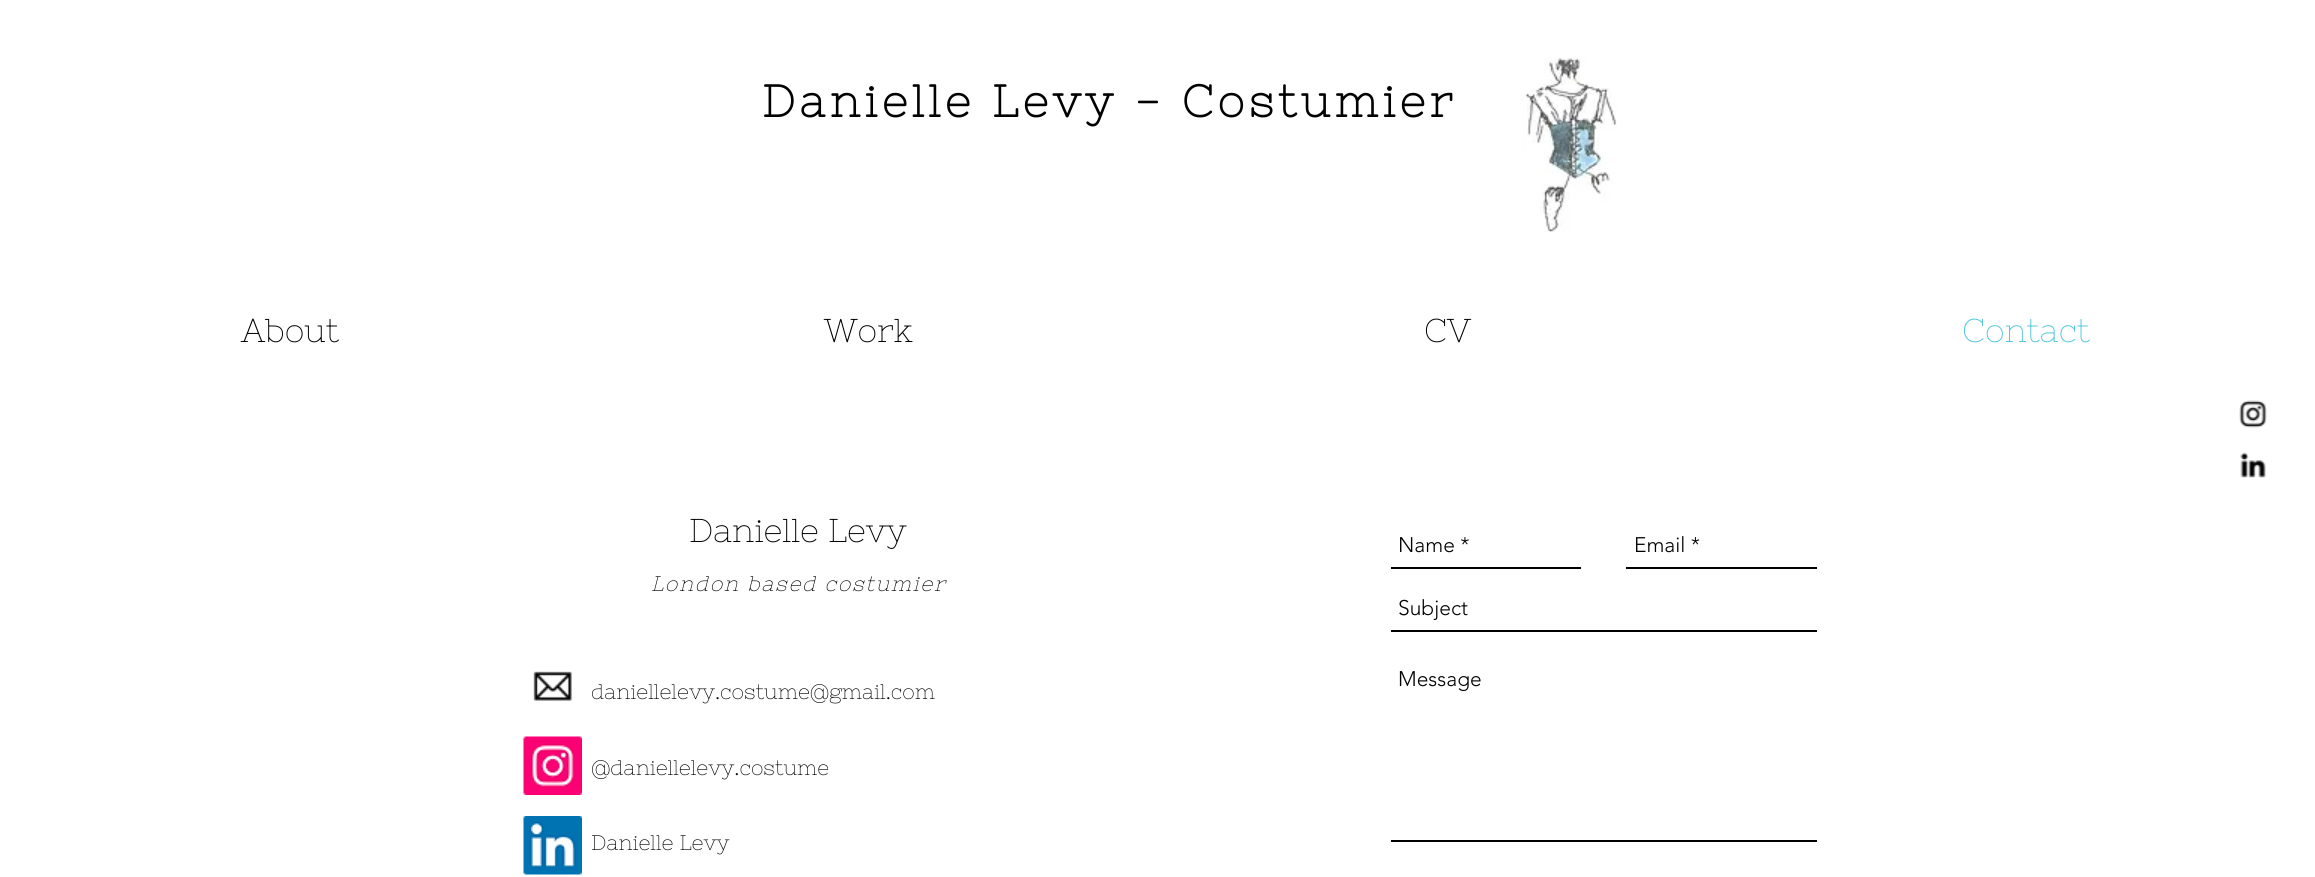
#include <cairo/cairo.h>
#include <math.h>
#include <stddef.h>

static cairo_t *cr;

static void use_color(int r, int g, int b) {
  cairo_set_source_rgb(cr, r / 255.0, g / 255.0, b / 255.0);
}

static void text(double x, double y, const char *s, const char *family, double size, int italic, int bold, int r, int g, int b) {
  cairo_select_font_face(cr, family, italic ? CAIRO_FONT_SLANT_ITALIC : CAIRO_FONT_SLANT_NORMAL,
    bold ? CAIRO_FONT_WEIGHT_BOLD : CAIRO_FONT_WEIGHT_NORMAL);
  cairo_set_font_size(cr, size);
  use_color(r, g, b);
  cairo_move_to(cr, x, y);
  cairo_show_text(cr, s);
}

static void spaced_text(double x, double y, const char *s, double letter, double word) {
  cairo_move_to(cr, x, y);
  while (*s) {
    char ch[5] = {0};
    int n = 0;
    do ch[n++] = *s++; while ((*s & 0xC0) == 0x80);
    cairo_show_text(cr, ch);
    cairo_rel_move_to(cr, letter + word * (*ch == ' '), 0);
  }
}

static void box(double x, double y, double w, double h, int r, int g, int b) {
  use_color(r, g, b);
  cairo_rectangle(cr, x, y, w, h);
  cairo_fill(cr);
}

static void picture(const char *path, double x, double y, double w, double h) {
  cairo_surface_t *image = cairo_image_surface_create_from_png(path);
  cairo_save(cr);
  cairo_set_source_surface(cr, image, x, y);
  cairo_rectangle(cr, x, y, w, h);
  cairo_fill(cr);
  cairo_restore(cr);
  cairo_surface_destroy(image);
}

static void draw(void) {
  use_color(255, 255, 255);
  cairo_paint(cr);
  picture("img_01.png", 1521, 58, 96, 174);
  picture("img_02.png", 2239, 400, 28, 28);
  picture("img_03.png", 2240, 452, 26, 26);
  picture("img_04.png", 533, 671, 39, 30);
  picture("img_05.png", 523, 736, 59, 59);
  picture("img_06.png", 523, 816, 59, 59);
  box(1391, 567, 190, 2, 0, 0, 0);
  box(1626, 567, 191, 2, 0, 0, 0);
  box(1391, 630, 426, 2, 0, 0, 0);
  box(1391, 840, 426, 2, 0, 0, 0);
  cairo_select_font_face(cr, "Nixie One", CAIRO_FONT_SLANT_NORMAL, CAIRO_FONT_WEIGHT_BOLD);
  cairo_set_font_size(cr, 45);
  spaced_text(762, 117, "Danielle Levy - Costumier", 4.5, 0);
  text(241, 342, "About", "Nixie One", 33, 0, 0, 0, 0, 0);
  text(824, 342, "Work", "Nixie One", 33, 0, 0, 0, 0, 0);
  text(1424, 342, "CV", "Nixie One", 33, 0, 0, 0, 0, 0);
  text(1962, 342, "Contact", "Nixie One", 33, 0, 0, 82, 199, 222);
  text(689, 542, "Danielle Levy", "Nixie One", 33, 0, 0, 0, 0, 0);
  cairo_select_font_face(cr, "Nixie One", CAIRO_FONT_SLANT_ITALIC, CAIRO_FONT_WEIGHT_NORMAL);
  cairo_set_font_size(cr, 21);
  spaced_text(651, 591, "London based costumier", 1.7, 0);
  text(591, 699, "daniellelevy.costume@gmail.com", "Nixie One", 21, 0, 0, 0, 0, 0);
  text(591, 775, "@daniellelevy.costume", "Nixie One", 21, 0, 0, 0, 0, 0);
  text(591, 850, "Danielle Levy", "Nixie One", 21, 0, 0, 0, 0, 0);
  text(1398, 552, "Name *", "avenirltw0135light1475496 Light", 21, 0, 0, 0, 0, 0);
  text(1634, 552, "Email *", "avenirltw0135light1475496 Light", 21, 0, 0, 0, 0, 0);
  text(1398, 615, "Subject", "avenirltw0135light1475496 Light", 21, 0, 0, 0, 0, 0);
  text(1398, 686, "Message", "avenirltw0135light1475496 Light", 21, 0, 0, 0, 0, 0);
}

int main(void) {
  cairo_surface_t *surface = cairo_image_surface_create(CAIRO_FORMAT_RGB24, 2315, 877);
  cr = cairo_create(surface);
  cairo_font_options_t *options = cairo_font_options_create();
  cairo_font_options_set_hint_metrics(options, CAIRO_HINT_METRICS_OFF);
  cairo_font_options_set_hint_style(options, CAIRO_HINT_STYLE_NONE);
  cairo_set_font_options(cr, options);
  cairo_set_miter_limit(cr, 4);
  draw();
  cairo_surface_write_to_png(surface, "out.png");
  cairo_font_options_destroy(options);
  cairo_destroy(cr);
  cairo_surface_destroy(surface);
  return 0;
}
